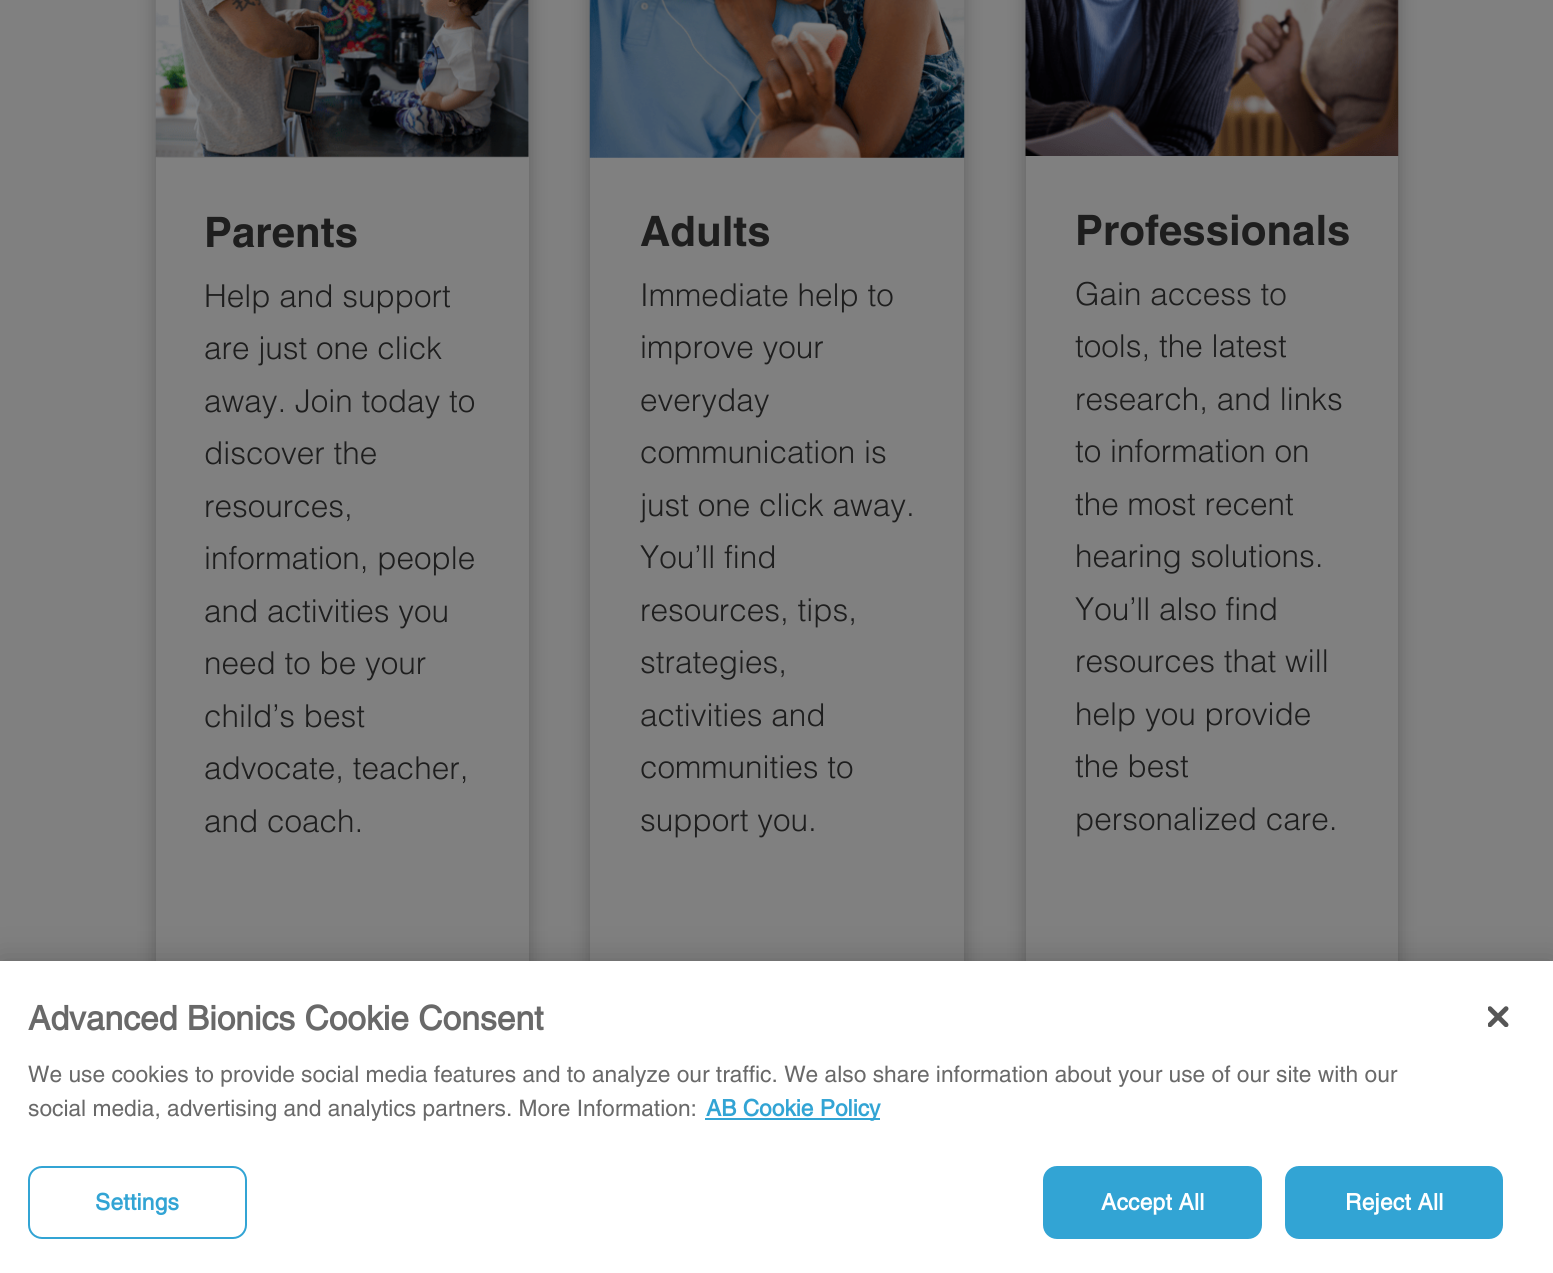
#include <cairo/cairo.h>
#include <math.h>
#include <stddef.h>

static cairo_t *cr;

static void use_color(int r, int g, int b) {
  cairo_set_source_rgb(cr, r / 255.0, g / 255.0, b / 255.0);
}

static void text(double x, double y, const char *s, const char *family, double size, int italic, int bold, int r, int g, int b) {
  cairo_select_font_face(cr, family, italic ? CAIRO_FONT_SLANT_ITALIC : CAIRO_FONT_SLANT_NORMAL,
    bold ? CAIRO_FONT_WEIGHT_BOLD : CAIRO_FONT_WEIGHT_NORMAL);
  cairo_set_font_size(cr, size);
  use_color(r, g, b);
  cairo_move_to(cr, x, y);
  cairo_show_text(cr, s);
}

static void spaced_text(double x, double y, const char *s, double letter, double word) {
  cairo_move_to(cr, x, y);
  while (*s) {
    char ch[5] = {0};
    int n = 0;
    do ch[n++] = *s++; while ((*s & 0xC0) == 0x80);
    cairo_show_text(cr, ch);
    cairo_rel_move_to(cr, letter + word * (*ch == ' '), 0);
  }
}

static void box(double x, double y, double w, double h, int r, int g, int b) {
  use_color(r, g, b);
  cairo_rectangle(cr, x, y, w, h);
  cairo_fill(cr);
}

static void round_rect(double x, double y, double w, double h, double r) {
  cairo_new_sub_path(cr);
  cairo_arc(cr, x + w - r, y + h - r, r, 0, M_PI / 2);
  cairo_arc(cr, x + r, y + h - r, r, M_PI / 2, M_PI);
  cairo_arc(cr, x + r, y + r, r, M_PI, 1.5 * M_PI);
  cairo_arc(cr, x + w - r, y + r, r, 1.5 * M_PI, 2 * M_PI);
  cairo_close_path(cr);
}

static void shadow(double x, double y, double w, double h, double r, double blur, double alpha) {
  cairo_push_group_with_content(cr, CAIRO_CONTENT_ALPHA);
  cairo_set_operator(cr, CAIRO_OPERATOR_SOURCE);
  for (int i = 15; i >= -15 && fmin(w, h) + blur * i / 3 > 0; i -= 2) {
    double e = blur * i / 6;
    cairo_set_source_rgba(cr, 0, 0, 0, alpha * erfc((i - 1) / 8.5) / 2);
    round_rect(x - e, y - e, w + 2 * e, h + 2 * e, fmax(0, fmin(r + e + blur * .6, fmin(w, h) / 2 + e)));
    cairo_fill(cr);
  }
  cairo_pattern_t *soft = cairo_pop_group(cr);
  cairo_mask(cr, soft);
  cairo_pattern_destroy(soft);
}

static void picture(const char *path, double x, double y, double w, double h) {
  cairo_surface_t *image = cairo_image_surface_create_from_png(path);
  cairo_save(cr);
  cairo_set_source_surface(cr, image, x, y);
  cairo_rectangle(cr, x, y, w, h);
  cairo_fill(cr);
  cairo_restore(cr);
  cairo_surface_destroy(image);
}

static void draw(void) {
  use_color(128, 128, 128);
  cairo_paint(cr);
  cairo_save(cr);
  cairo_set_fill_rule(cr, CAIRO_FILL_RULE_EVEN_ODD);
  cairo_new_path(cr);
  cairo_move_to(cr, 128, 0);
  cairo_line_to(cr, 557, 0);
  cairo_line_to(cr, 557, 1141);
  cairo_line_to(cr, 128, 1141);
  cairo_close_path(cr);
  cairo_move_to(cr, 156, -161);
  cairo_line_to(cr, 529, -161);
  cairo_line_to(cr, 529, 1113);
  cairo_line_to(cr, 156, 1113);
  cairo_close_path(cr);
  cairo_clip(cr);
  use_color(0, 0, 0);
  shadow(156, -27, 373, 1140, 0, 9, 0.25);
  cairo_restore(cr);
  picture("img_01.png", 155, 0, 374, 158);
  cairo_save(cr);
  cairo_set_fill_rule(cr, CAIRO_FILL_RULE_EVEN_ODD);
  cairo_new_path(cr);
  cairo_move_to(cr, 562, 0);
  cairo_line_to(cr, 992, 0);
  cairo_line_to(cr, 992, 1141);
  cairo_line_to(cr, 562, 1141);
  cairo_close_path(cr);
  cairo_move_to(cr, 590, -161);
  cairo_line_to(cr, 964, -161);
  cairo_line_to(cr, 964, 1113);
  cairo_line_to(cr, 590, 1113);
  cairo_close_path(cr);
  cairo_clip(cr);
  use_color(0, 0, 0);
  shadow(590, -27, 374, 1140, 0, 9, 0.25);
  cairo_restore(cr);
  picture("img_02.png", 589, 0, 376, 158);
  cairo_save(cr);
  cairo_set_fill_rule(cr, CAIRO_FILL_RULE_EVEN_ODD);
  cairo_new_path(cr);
  cairo_move_to(cr, 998, 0);
  cairo_line_to(cr, 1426, 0);
  cairo_line_to(cr, 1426, 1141);
  cairo_line_to(cr, 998, 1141);
  cairo_close_path(cr);
  cairo_move_to(cr, 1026, -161);
  cairo_line_to(cr, 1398, -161);
  cairo_line_to(cr, 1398, 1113);
  cairo_line_to(cr, 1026, 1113);
  cairo_close_path(cr);
  cairo_clip(cr);
  use_color(0, 0, 0);
  shadow(1026, -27, 372, 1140, 0, 9, 0.25);
  cairo_restore(cr);
  picture("img_03.png", 1025, 0, 374, 156);
  use_color(0, 0, 0);
  shadow(0, 961, 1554, 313, 0, 16, 0.2);
  box(0, 961, 1553, 312, 255, 255, 255);
  box(705, 1118, 175, 2, 50, 164, 212);
  round_rect(29, 1167, 217, 71, 13);
  cairo_stroke(cr);
  round_rect(1044, 1167, 217, 71, 13);
  cairo_fill_preserve(cr);
  cairo_stroke(cr);
  round_rect(1286, 1167, 216, 71, 13);
  cairo_fill_preserve(cr);
  cairo_stroke(cr);
  picture("img_04.png", 1488, 1006, 21, 21);
  text(204, 247, "Parents", "Helvetica", 42, 0, 1, 30, 30, 30);
  text(204, 307, "Help and support", "Helvetica Light", 31.5, 0, 0, 30, 30, 30);
  text(204, 359, "are just one click", "Helvetica Light", 31.5, 0, 0, 30, 30, 30);
  text(204, 412, "away. Join today to", "Helvetica Light", 31.5, 0, 0, 30, 30, 30);
  text(204, 464, "discover the", "Helvetica Light", 31.5, 0, 0, 30, 30, 30);
  text(204, 517, "resources,", "Helvetica Light", 31.5, 0, 0, 30, 30, 30);
  text(204, 569, "information, people", "Helvetica Light", 31.5, 0, 0, 30, 30, 30);
  text(204, 622, "and activities you", "Helvetica Light", 31.5, 0, 0, 30, 30, 30);
  text(204, 674, "need to be your", "Helvetica Light", 31.5, 0, 0, 30, 30, 30);
  text(204, 727, "child’s best", "Helvetica Light", 31.5, 0, 0, 30, 30, 30);
  text(204, 779, "advocate, teacher,", "Helvetica Light", 31.5, 0, 0, 30, 30, 30);
  text(204, 832, "and coach.", "Helvetica Light", 31.5, 0, 0, 30, 30, 30);
  text(640, 246, "Adults", "Helvetica", 42, 0, 1, 30, 30, 30);
  text(640, 306, "Immediate help to", "Helvetica Light", 31.5, 0, 0, 30, 30, 30);
  text(640, 358, "improve your", "Helvetica Light", 31.5, 0, 0, 30, 30, 30);
  text(640, 411, "everyday", "Helvetica Light", 31.5, 0, 0, 30, 30, 30);
  text(640, 463, "communication is", "Helvetica Light", 31.5, 0, 0, 30, 30, 30);
  text(640, 516, "just one click away.", "Helvetica Light", 31.5, 0, 0, 30, 30, 30);
  text(640, 568, "You’ll find", "Helvetica Light", 31.5, 0, 0, 30, 30, 30);
  text(640, 621, "resources, tips,", "Helvetica Light", 31.5, 0, 0, 30, 30, 30);
  text(640, 673, "strategies,", "Helvetica Light", 31.5, 0, 0, 30, 30, 30);
  text(640, 726, "activities and", "Helvetica Light", 31.5, 0, 0, 30, 30, 30);
  text(640, 778, "communities to", "Helvetica Light", 31.5, 0, 0, 30, 30, 30);
  text(640, 831, "support you.", "Helvetica Light", 31.5, 0, 0, 30, 30, 30);
  text(1075, 245, "Professionals", "Helvetica", 42, 0, 1, 30, 30, 30);
  text(1075, 305, "Gain access to", "Helvetica Light", 31.5, 0, 0, 30, 30, 30);
  text(1075, 357, "tools, the latest", "Helvetica Light", 31.5, 0, 0, 30, 30, 30);
  text(1075, 410, "research, and links", "Helvetica Light", 31.5, 0, 0, 30, 30, 30);
  text(1075, 462, "to information on", "Helvetica Light", 31.5, 0, 0, 30, 30, 30);
  text(1075, 515, "the most recent", "Helvetica Light", 31.5, 0, 0, 30, 30, 30);
  text(1075, 567, "hearing solutions.", "Helvetica Light", 31.5, 0, 0, 30, 30, 30);
  text(1075, 620, "You’ll also find", "Helvetica Light", 31.5, 0, 0, 30, 30, 30);
  text(1075, 672, "resources that will", "Helvetica Light", 31.5, 0, 0, 30, 30, 30);
  text(1075, 725, "help you provide", "Helvetica Light", 31.5, 0, 0, 30, 30, 30);
  text(1075, 777, "the best", "Helvetica Light", 31.5, 0, 0, 30, 30, 30);
  text(1075, 830, "personalized care.", "Helvetica Light", 31.5, 0, 0, 30, 30, 30);
  text(28, 1030, "Advanced Bionics Cookie Consent", "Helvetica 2", 33.6, 0, 1, 105, 105, 105);
  text(28, 1082, "We use cookies to provide social media features and to analyze our traffic. We also share information about your use of our site with our", "Helvetica", 22.75, 0, 0, 105, 105, 105);
  text(28, 1116, "social media, advertising and analytics partners. More Information:", "Helvetica", 22.75, 0, 0, 105, 105, 105);
  text(706, 1116, "AB Cookie Policy", "Helvetica 2", 22.75, 0, 1, 50, 164, 212);
  spaced_text(95, 1210, "Settings", 0.25, 0);
  use_color(255, 255, 255);
  spaced_text(1101, 1210, "Accept All", 0.25, 0);
  spaced_text(1345, 1210, "Reject All", 0.25, 0);
}

int main(void) {
  cairo_surface_t *surface = cairo_image_surface_create(CAIRO_FORMAT_RGB24, 1553, 1273);
  cr = cairo_create(surface);
  cairo_font_options_t *options = cairo_font_options_create();
  cairo_font_options_set_hint_metrics(options, CAIRO_HINT_METRICS_OFF);
  cairo_font_options_set_hint_style(options, CAIRO_HINT_STYLE_NONE);
  cairo_set_font_options(cr, options);
  cairo_set_miter_limit(cr, 4);
  draw();
  cairo_surface_write_to_png(surface, "out.png");
  cairo_font_options_destroy(options);
  cairo_destroy(cr);
  cairo_surface_destroy(surface);
  return 0;
}
